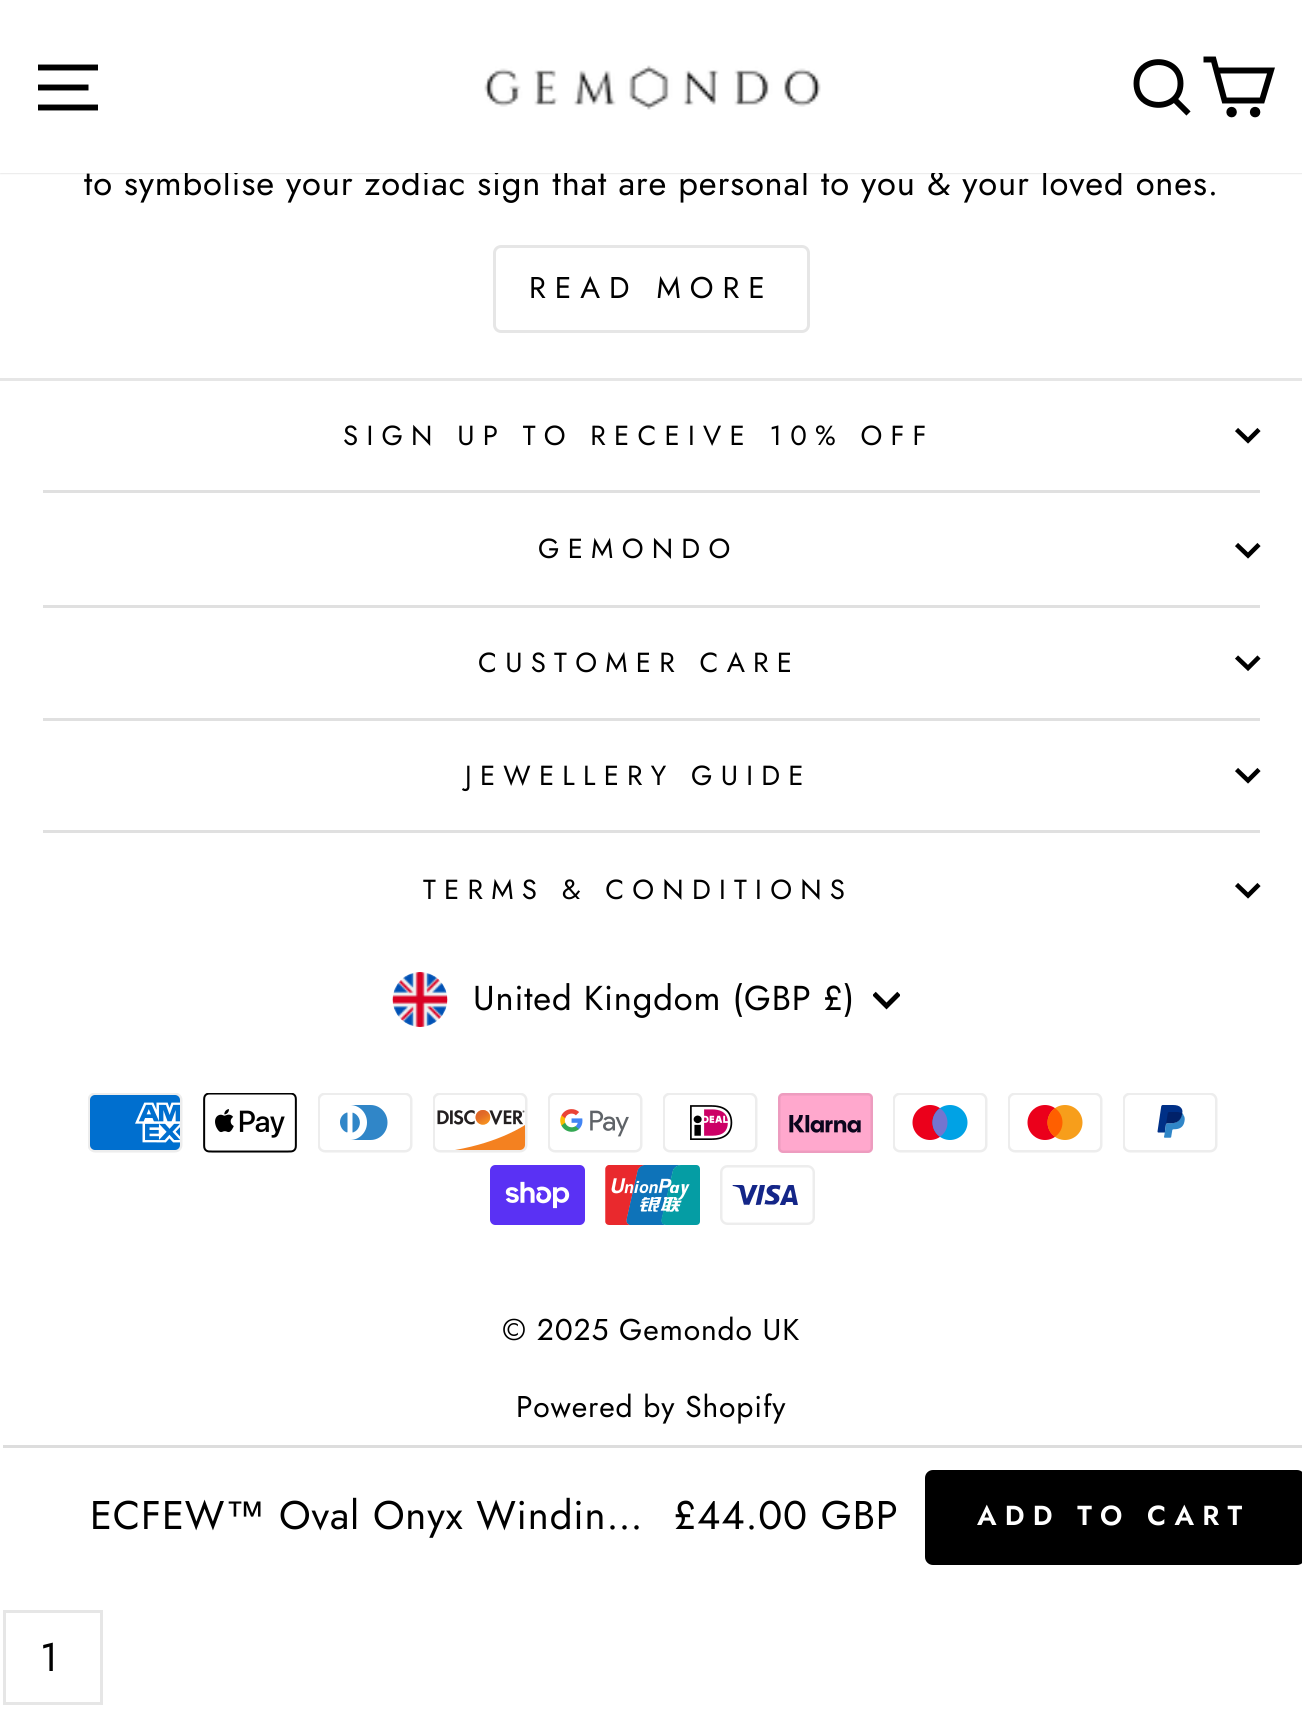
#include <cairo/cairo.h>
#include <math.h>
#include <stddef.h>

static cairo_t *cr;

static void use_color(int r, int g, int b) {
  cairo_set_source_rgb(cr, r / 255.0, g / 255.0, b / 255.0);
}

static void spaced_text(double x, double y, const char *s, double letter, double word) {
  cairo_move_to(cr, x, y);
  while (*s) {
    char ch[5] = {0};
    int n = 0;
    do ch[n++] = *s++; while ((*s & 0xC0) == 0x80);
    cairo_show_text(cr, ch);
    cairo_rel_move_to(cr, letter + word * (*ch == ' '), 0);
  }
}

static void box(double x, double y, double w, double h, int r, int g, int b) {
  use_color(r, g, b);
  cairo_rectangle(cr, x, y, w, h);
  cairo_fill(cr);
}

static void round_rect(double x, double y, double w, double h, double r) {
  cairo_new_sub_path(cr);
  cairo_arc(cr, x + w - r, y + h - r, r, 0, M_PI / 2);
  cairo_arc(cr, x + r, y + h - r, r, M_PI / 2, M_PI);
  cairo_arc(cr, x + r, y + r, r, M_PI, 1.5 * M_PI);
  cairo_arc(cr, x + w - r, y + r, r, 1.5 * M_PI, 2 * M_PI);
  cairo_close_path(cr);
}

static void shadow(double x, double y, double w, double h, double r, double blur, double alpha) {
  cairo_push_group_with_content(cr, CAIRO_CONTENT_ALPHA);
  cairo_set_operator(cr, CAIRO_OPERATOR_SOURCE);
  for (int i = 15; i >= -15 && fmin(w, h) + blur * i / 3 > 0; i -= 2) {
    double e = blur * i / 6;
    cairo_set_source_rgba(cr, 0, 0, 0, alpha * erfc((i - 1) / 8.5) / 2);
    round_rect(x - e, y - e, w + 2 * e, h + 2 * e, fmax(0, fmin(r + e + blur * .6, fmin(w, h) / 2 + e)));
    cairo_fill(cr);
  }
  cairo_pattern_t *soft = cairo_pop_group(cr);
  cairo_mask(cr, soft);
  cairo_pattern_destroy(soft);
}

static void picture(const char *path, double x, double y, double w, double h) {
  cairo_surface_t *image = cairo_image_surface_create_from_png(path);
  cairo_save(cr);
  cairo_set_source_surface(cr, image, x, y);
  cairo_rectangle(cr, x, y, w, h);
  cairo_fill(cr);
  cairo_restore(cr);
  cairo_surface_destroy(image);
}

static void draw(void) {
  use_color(255, 255, 255);
  cairo_paint(cr);
  use_color(0, 0, 0);
  shadow(0, 0, 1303, 173, 0, 1, 0.2);
  round_rect(494.5, 246.5, 314, 85, 6.5);
  use_color(230, 230, 230);
  cairo_set_line_width(cr, 3);
  cairo_stroke(cr);
  box(0, 378, 1302, 3, 230, 230, 230);
  cairo_new_path(cr);
  cairo_move_to(cr, 1236.5, 429.5);
  cairo_line_to(cr, 1248, 440.5);
  cairo_line_to(cr, 1259, 429.5);
  use_color(0, 0, 0);
  cairo_set_line_width(cr, 4.5);
  cairo_stroke(cr);
  box(43, 490, 1217, 3, 224, 224, 224);
  cairo_new_path(cr);
  cairo_move_to(cr, 1236.5, 544.5);
  cairo_line_to(cr, 1248, 555.5);
  cairo_line_to(cr, 1259, 544.5);
  use_color(0, 0, 0);
  cairo_stroke(cr);
  box(43, 605, 1217, 3, 224, 224, 224);
  cairo_new_path(cr);
  cairo_move_to(cr, 1236.5, 657);
  cairo_line_to(cr, 1248, 668);
  cairo_line_to(cr, 1259, 657);
  use_color(0, 0, 0);
  cairo_stroke(cr);
  box(43, 718, 1217, 3, 224, 224, 224);
  cairo_new_path(cr);
  cairo_move_to(cr, 1236.5, 769.5);
  cairo_line_to(cr, 1248, 780.5);
  cairo_line_to(cr, 1259, 769.5);
  use_color(0, 0, 0);
  cairo_stroke(cr);
  box(43, 830, 1217, 3, 224, 224, 224);
  cairo_new_path(cr);
  cairo_move_to(cr, 1236.5, 884.5);
  cairo_line_to(cr, 1248, 895.5);
  cairo_line_to(cr, 1259, 884.5);
  use_color(0, 0, 0);
  cairo_stroke(cr);
  picture("img_02.png", 392, 972, 56, 55);
  cairo_save(cr);
  cairo_rectangle(cr, 873, 988, 27, 27);
  cairo_clip(cr);
  cairo_new_path(cr);
  cairo_move_to(cr, 874, 993.5);
  cairo_line_to(cr, 886.5, 1006);
  cairo_line_to(cr, 899, 993.5);
  cairo_set_line_width(cr, 4.9);
  cairo_stroke(cr);
  cairo_restore(cr);
  picture("img_03.png", 88, 1093, 95, 60);
  picture("img_04.png", 203, 1093, 94, 60);
  picture("img_05.png", 318, 1093, 95, 60);
  picture("img_06.png", 433, 1093, 95, 60);
  picture("img_07.png", 548, 1093, 95, 60);
  picture("img_08.png", 663, 1093, 95, 60);
  picture("img_09.png", 778, 1093, 95, 60);
  picture("img_10.png", 893, 1093, 95, 60);
  picture("img_11.png", 1008, 1093, 95, 60);
  picture("img_12.png", 1123, 1093, 95, 60);
  picture("img_13.png", 490, 1165, 95, 60);
  picture("img_14.png", 605, 1165, 95, 60);
  picture("img_15.png", 720, 1165, 95, 60);
  box(3, 1445, 1299, 3, 221, 221, 221);
  use_color(0, 0, 0);
  round_rect(925, 1470, 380, 95, 8);
  cairo_fill(cr);
  cairo_rectangle(cr, 4.5, 1611.5, 97, 92);
  use_color(230, 230, 230);
  cairo_set_line_width(cr, 3);
  cairo_stroke(cr);
  cairo_select_font_face(cr, "Jost", CAIRO_FONT_SLANT_NORMAL, CAIRO_FONT_WEIGHT_NORMAL);
  cairo_set_font_size(cr, 34.5);
  use_color(0, 0, 0);
  spaced_text(84, 195, "to symbolise your zodiac sign that are personal to you & your loved ones.", 0.85, 0);
  box(0, 0, 1302, 173, 255, 255, 255);
  picture("img_01.png", 484, 65, 337, 45);
  use_color(0, 0, 0);
  cairo_arc(cr, 1255.1, 112.1, 2.3, 0, 2 * M_PI);
  cairo_fill_preserve(cr);
  cairo_set_line_width(cr, 5.9);
  cairo_stroke(cr);
  cairo_arc(cr, 1231.6, 112.1, 2.3, 0, 2 * M_PI);
  cairo_fill_preserve(cr);
  cairo_stroke(cr);
  cairo_new_path(cr);
  cairo_move_to(cr, 1216.5, 70.5);
  cairo_line_to(cr, 1271, 70.5);
  cairo_line_to(cr, 1262, 100.5);
  cairo_line_to(cr, 1224.5, 100.5);
  cairo_line_to(cr, 1213.5, 59.5);
  cairo_line_to(cr, 1203.5, 59.5);
  cairo_stroke(cr);
  cairo_new_path(cr);
  cairo_move_to(cr, 1180.5, 83.5);
  cairo_curve_to(cr, 1180.5, 112, 1136.5, 112, 1136.5, 83.5);
  cairo_curve_to(cr, 1136.5, 55, 1180.5, 55, 1180.5, 83.5);
  cairo_close_path(cr);
  cairo_move_to(cr, 1188.5, 113.5);
  cairo_line_to(cr, 1174, 99);
  cairo_stroke(cr);
  cairo_new_path(cr);
  cairo_move_to(cr, 38, 67.5);
  cairo_line_to(cr, 98, 67.5);
  cairo_move_to(cr, 38, 87.5);
  cairo_line_to(cr, 88.5, 87.5);
  cairo_move_to(cr, 38, 107.5);
  cairo_line_to(cr, 98, 107.5);
  cairo_stroke(cr);
  cairo_set_font_size(cr, 30);
  spaced_text(529, 298, "READ MORE", 9, 0);
  cairo_set_font_size(cr, 27.6);
  spaced_text(343, 445, "SIGN UP TO RECEIVE 10% OFF", 8.25, 0);
  spaced_text(538, 558, "GEMONDO", 8.25, 0);
  spaced_text(478, 672, "CUSTOMER CARE", 8.25, 0);
  spaced_text(465, 785, "JEWELLERY GUIDE", 8.25, 0);
  spaced_text(423, 899, "TERMS & CONDITIONS", 8.25, 0);
  cairo_set_font_size(cr, 34.5);
  spaced_text(473, 1010, "United Kingdom (GBP £)", 0.85, 0);
  cairo_set_font_size(cr, 30);
  spaced_text(502, 1340, "© 2025 Gemondo UK", 0.85, 0);
  spaced_text(516, 1417, "Powered by Shopify", 0.85, 0);
  cairo_set_font_size(cr, 40);
  spaced_text(90, 1529, "ECFEW", 0.85, 0);
  cairo_select_font_face(cr, "Liberation Sans", CAIRO_FONT_SLANT_NORMAL, CAIRO_FONT_WEIGHT_NORMAL);
  spaced_text(225, 1529, "™", 0.85, 0);
  cairo_select_font_face(cr, "Jost", CAIRO_FONT_SLANT_NORMAL, CAIRO_FONT_WEIGHT_NORMAL);
  spaced_text(279, 1529, "Oval Onyx Windin…", 0.85, 0);
  spaced_text(673, 1529, "£44.00 GBP", 0.85, 0);
  cairo_select_font_face(cr, "Jost SemiBold", CAIRO_FONT_SLANT_NORMAL, CAIRO_FONT_WEIGHT_NORMAL);
  cairo_set_font_size(cr, 27.5);
  use_color(255, 255, 255);
  spaced_text(977, 1525, "ADD TO CART", 8.25, 0);
  cairo_select_font_face(cr, "Jost", CAIRO_FONT_SLANT_NORMAL, CAIRO_FONT_WEIGHT_NORMAL);
  cairo_set_font_size(cr, 40);
  use_color(0, 0, 0);
  spaced_text(40, 1671, "1", 1, 0);
}

int main(void) {
  cairo_surface_t *surface = cairo_image_surface_create(CAIRO_FORMAT_RGB24, 1302, 1727);
  cr = cairo_create(surface);
  cairo_font_options_t *options = cairo_font_options_create();
  cairo_font_options_set_hint_metrics(options, CAIRO_HINT_METRICS_OFF);
  cairo_font_options_set_hint_style(options, CAIRO_HINT_STYLE_NONE);
  cairo_set_font_options(cr, options);
  cairo_set_miter_limit(cr, 4);
  draw();
  cairo_surface_write_to_png(surface, "out.png");
  cairo_font_options_destroy(options);
  cairo_destroy(cr);
  cairo_surface_destroy(surface);
  return 0;
}
